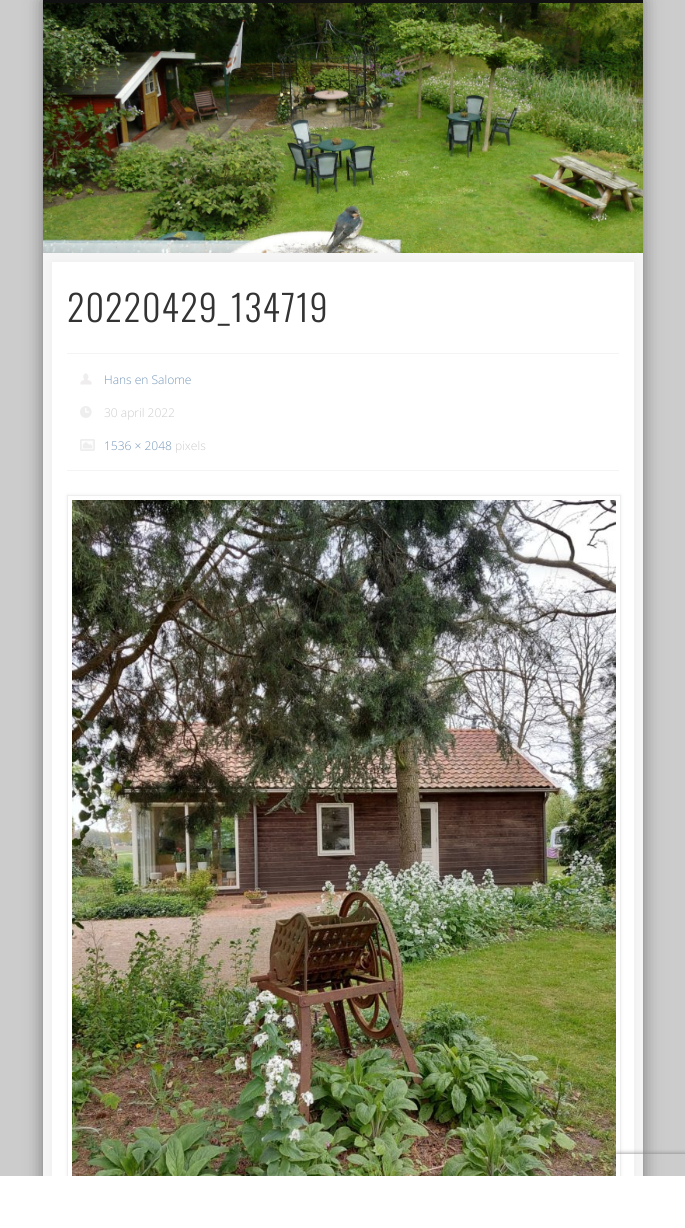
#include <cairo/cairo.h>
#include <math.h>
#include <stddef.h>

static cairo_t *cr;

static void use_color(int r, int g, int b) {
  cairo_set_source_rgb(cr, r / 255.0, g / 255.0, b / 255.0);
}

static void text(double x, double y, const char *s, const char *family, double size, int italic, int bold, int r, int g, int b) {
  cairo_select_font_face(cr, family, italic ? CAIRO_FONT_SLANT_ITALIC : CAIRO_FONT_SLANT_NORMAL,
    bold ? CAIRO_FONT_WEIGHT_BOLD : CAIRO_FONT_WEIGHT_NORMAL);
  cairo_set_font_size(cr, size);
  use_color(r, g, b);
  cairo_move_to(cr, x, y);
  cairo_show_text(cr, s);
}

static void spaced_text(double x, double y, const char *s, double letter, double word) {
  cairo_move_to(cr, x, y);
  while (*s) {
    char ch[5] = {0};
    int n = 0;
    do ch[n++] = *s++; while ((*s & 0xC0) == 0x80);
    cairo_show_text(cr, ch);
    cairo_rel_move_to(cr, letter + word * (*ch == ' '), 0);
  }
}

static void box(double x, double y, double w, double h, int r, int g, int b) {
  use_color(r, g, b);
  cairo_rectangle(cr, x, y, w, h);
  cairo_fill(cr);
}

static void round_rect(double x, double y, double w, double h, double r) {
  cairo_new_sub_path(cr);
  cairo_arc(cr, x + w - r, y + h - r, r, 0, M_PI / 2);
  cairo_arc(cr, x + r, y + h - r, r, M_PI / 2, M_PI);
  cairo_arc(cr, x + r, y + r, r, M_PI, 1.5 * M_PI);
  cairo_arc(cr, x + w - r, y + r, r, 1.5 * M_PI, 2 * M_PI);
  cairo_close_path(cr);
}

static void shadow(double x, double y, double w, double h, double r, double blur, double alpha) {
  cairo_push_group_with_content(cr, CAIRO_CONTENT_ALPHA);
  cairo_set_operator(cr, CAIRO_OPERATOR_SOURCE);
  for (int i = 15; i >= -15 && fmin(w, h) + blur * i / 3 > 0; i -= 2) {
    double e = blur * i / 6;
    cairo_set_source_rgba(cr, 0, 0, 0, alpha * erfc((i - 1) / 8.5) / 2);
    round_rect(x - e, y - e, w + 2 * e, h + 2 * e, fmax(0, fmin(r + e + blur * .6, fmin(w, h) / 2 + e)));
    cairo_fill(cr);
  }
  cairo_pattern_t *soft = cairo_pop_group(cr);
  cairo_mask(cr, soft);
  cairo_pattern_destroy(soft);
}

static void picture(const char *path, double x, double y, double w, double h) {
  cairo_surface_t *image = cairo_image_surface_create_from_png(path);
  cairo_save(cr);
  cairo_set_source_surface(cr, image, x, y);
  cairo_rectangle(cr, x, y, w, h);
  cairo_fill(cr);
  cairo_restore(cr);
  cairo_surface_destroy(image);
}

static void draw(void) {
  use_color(204, 204, 204);
  cairo_paint(cr);
  use_color(0, 0, 0);
  shadow(43, 0, 600, 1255, 0, 9, 0.4);
  box(43, 253, 600, 923, 248, 248, 248);
  box(43, 0, 600, 3, 17, 17, 17);
  use_color(0, 0, 0);
  shadow(51, 261, 584, 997, 0, 10, 0.05);
  picture("img_01.png", 43, 3, 600, 250);
  box(52, 262, 582, 914, 255, 255, 255);
  box(67, 353, 552, 1, 244, 244, 244);
  box(67, 470, 552, 1, 244, 244, 244);
  picture("img_02.png", 80, 373, 12, 12);
  picture("img_03.png", 80, 406, 12, 12);
  picture("img_04.png", 80, 439, 15, 12);
  cairo_save(cr);
  cairo_set_fill_rule(cr, CAIRO_FILL_RULE_EVEN_ODD);
  cairo_new_path(cr);
  cairo_move_to(cr, 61, 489);
  cairo_line_to(cr, 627, 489);
  cairo_line_to(cr, 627, 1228);
  cairo_line_to(cr, 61, 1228);
  cairo_close_path(cr);
  cairo_move_to(cr, 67, 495);
  cairo_line_to(cr, 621, 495);
  cairo_line_to(cr, 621, 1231);
  cairo_line_to(cr, 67, 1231);
  cairo_close_path(cr);
  cairo_clip(cr);
  use_color(238, 238, 238);
  shadow(67, 495, 554, 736, 0, 1.5, 1);
  cairo_restore(cr);
  cairo_rectangle(cr, 67.5, 495.5, 553, 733);
  use_color(238, 238, 238);
  cairo_set_line_width(cr, 1);
  cairo_stroke(cr);
  picture("img_05.png", 72, 500, 544, 676);
  cairo_save(cr);
  cairo_set_fill_rule(cr, CAIRO_FILL_RULE_EVEN_ODD);
  cairo_new_path(cr);
  cairo_move_to(cr, 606, 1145);
  cairo_line_to(cr, 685, 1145);
  cairo_line_to(cr, 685, 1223);
  cairo_line_to(cr, 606, 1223);
  cairo_close_path(cr);
  cairo_move_to(cr, 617, 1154);
  cairo_line_to(cr, 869, 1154);
  cairo_curve_to(cr, 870, 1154, 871, 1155, 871, 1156);
  cairo_line_to(cr, 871, 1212);
  cairo_curve_to(cr, 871, 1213, 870, 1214, 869, 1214);
  cairo_line_to(cr, 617, 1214);
  cairo_curve_to(cr, 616, 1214, 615, 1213, 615, 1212);
  cairo_line_to(cr, 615, 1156);
  cairo_curve_to(cr, 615, 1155, 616, 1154, 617, 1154);
  cairo_close_path(cr);
  cairo_clip(cr);
  use_color(128, 128, 128);
  shadow(615, 1154, 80, 60, 2, 2.5, 1);
  cairo_restore(cr);
  box(0, 1176, 685, 52, 255, 255, 255);
  cairo_select_font_face(cr, "Oswald Light", CAIRO_FONT_SLANT_NORMAL, CAIRO_FONT_WEIGHT_NORMAL);
  cairo_set_font_size(cr, 36);
  use_color(51, 51, 51);
  spaced_text(67, 322, "20220429_134719", 1, 0);
  text(104, 384, "Hans en Salome", "Open Sans Light", 12, 0, 0, 117, 151, 185);
  text(104, 417, "30 april 2022", "Open Sans Light", 12, 0, 0, 204, 204, 204);
  text(104, 450, "1536 × 2048", "Open Sans Light", 12, 0, 0, 117, 151, 185);
  text(175, 450, "pixels", "Open Sans Light", 12, 0, 0, 204, 204, 204);
}

int main(void) {
  cairo_surface_t *surface = cairo_image_surface_create(CAIRO_FORMAT_RGB24, 685, 1228);
  cr = cairo_create(surface);
  cairo_font_options_t *options = cairo_font_options_create();
  cairo_font_options_set_hint_metrics(options, CAIRO_HINT_METRICS_OFF);
  cairo_font_options_set_hint_style(options, CAIRO_HINT_STYLE_NONE);
  cairo_set_font_options(cr, options);
  cairo_set_miter_limit(cr, 4);
  draw();
  cairo_surface_write_to_png(surface, "out.png");
  cairo_font_options_destroy(options);
  cairo_destroy(cr);
  cairo_surface_destroy(surface);
  return 0;
}
